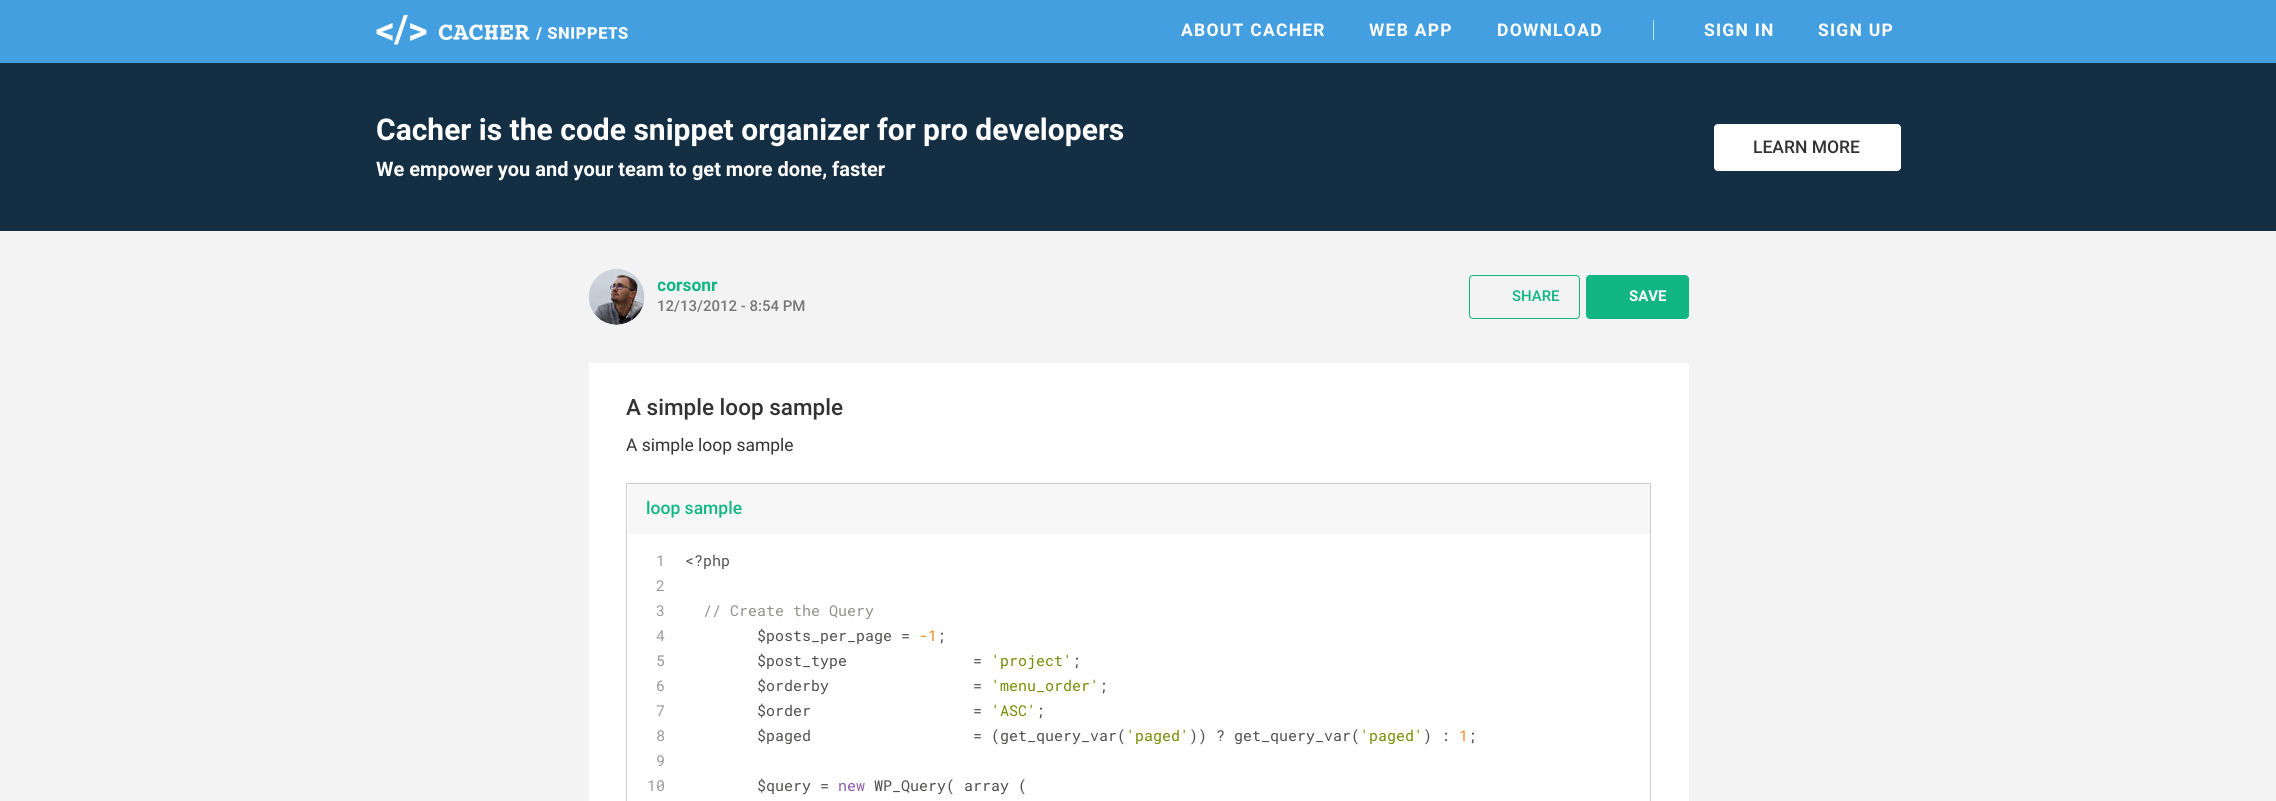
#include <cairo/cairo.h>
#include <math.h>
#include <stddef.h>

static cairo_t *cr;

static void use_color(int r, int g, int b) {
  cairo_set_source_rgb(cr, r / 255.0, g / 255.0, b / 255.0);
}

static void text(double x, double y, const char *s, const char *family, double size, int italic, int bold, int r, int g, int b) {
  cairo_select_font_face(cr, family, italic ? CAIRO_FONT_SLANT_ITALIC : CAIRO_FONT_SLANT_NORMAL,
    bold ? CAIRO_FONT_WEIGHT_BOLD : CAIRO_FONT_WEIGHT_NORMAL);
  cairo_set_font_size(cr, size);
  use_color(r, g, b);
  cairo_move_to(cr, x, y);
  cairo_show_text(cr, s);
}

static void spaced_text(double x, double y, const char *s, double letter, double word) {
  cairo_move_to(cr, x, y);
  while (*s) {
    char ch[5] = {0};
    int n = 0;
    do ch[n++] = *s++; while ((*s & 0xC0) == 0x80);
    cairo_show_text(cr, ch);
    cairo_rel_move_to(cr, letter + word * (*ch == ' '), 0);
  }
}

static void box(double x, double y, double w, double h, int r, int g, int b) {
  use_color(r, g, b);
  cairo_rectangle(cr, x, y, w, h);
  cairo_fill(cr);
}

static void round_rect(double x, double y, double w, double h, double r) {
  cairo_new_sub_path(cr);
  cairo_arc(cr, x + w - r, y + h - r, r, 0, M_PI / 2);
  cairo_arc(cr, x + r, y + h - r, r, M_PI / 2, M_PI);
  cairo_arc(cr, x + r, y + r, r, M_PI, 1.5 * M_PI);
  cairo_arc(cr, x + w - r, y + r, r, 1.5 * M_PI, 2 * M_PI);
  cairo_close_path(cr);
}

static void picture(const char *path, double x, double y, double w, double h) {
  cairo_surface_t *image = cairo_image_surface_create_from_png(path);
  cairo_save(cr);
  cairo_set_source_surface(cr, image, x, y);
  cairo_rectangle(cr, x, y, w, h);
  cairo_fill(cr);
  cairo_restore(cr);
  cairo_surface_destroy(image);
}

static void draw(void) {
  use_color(243, 243, 243);
  cairo_paint(cr);
  box(0, 0, 2276, 63, 67, 159, 224);
  picture("img_01.png", 376, 15, 252, 30);
  box(1653, 20, 1, 20, 199, 226, 246);
  box(0, 63, 2276, 168, 20, 47, 67);
  use_color(255, 255, 255);
  round_rect(1714.5, 124.5, 186, 46, 3.5);
  cairo_fill_preserve(cr);
  cairo_set_line_width(cr, 1);
  cairo_stroke(cr);
  picture("img_02.png", 589, 269, 56, 56);
  round_rect(1469.5, 275.5, 110, 43, 3.5);
  use_color(17, 182, 131);
  cairo_stroke(cr);
  round_rect(1586.5, 275.5, 102, 43, 3.5);
  cairo_fill_preserve(cr);
  cairo_stroke(cr);
  box(589, 363, 1100, 438, 255, 255, 255);
  cairo_rectangle(cr, 626.5, 483.5, 1024, 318);
  use_color(204, 204, 204);
  cairo_stroke(cr);
  box(628, 484, 1022, 50, 247, 247, 247);
  cairo_select_font_face(cr, "Roboto", CAIRO_FONT_SLANT_NORMAL, CAIRO_FONT_WEIGHT_BOLD);
  cairo_set_font_size(cr, 17.5);
  use_color(255, 255, 255);
  spaced_text(1181, 36, "ABOUT CACHER", 1.25, 0);
  spaced_text(1369, 36, "WEB APP", 1.25, 0);
  spaced_text(1497, 36, "DOWNLOAD", 1.25, 0);
  spaced_text(1704, 36, "SIGN IN", 1.25, 0);
  spaced_text(1818, 36, "SIGN UP", 1.25, 0);
  text(376, 140, "Cacher is the code snippet organizer for pro developers", "Roboto", 30, 0, 1, 255, 255, 255);
  text(376, 176, "We empower you and your team to get more done, faster", "Roboto", 20, 0, 1, 255, 255, 255);
  text(1753, 153, "LEARN MORE", "Roboto Medium", 17.5, 0, 0, 51, 51, 51);
  cairo_save(cr);
  cairo_rectangle(cr, 658, 275, 60, 20);
  cairo_clip(cr);
  text(657, 291, "corsonr", "Roboto", 17.5, 0, 1, 17, 182, 131);
  cairo_restore(cr);
  text(657, 311, "12/13/2012 - 8:54 PM", "Roboto Medium", 15, 0, 0, 119, 119, 119);
  text(1512, 301, "SHARE", "Roboto Medium", 15, 0, 0, 17, 182, 131);
  text(1629, 301, "SAVE", "Roboto", 15, 0, 1, 255, 255, 255);
  text(626, 415, "A simple loop sample", "Roboto Medium", 22.5, 0, 0, 51, 51, 51);
  text(626, 451, "A simple loop sample", "Roboto", 17.5, 0, 0, 51, 51, 51);
  text(646, 514, "loop sample", "Roboto Medium", 17.5, 0, 0, 17, 182, 131);
  text(656, 566, "1", "Roboto Mono", 15, 0, 0, 153, 153, 153);
  text(685, 566, "<?php", "Roboto Mono", 15, 0, 0, 77, 77, 76);
  text(656, 591, "2", "Roboto Mono", 15, 0, 0, 153, 153, 153);
  text(656, 616, "3", "Roboto Mono", 15, 0, 0, 153, 153, 153);
  text(703, 616, "// Create the Query", "Roboto Mono", 15, 0, 0, 142, 144, 140);
  text(656, 641, "4", "Roboto Mono", 15, 0, 0, 153, 153, 153);
  text(757, 641, "$posts_per_page =", "Roboto Mono", 15, 0, 0, 77, 77, 76);
  text(919, 641, "-1", "Roboto Mono", 15, 0, 0, 245, 135, 31);
  text(937, 641, ";", "Roboto Mono", 15, 0, 0, 77, 77, 76);
  text(656, 666, "5", "Roboto Mono", 15, 0, 0, 153, 153, 153);
  text(757, 666, "$post_type", "Roboto Mono", 15, 0, 0, 77, 77, 76);
  text(973, 666, "=", "Roboto Mono", 15, 0, 0, 77, 77, 76);
  text(991, 666, "'project'", "Roboto Mono", 15, 0, 0, 113, 140, 0);
  text(1072, 666, ";", "Roboto Mono", 15, 0, 0, 77, 77, 76);
  text(656, 691, "6", "Roboto Mono", 15, 0, 0, 153, 153, 153);
  text(757, 691, "$orderby", "Roboto Mono", 15, 0, 0, 77, 77, 76);
  text(973, 691, "=", "Roboto Mono", 15, 0, 0, 77, 77, 76);
  text(991, 691, "'menu_order'", "Roboto Mono", 15, 0, 0, 113, 140, 0);
  text(1099, 691, ";", "Roboto Mono", 15, 0, 0, 77, 77, 76);
  text(656, 716, "7", "Roboto Mono", 15, 0, 0, 153, 153, 153);
  text(757, 716, "$order", "Roboto Mono", 15, 0, 0, 77, 77, 76);
  text(973, 716, "=", "Roboto Mono", 15, 0, 0, 77, 77, 76);
  text(991, 716, "'ASC'", "Roboto Mono", 15, 0, 0, 113, 140, 0);
  text(1036, 716, ";", "Roboto Mono", 15, 0, 0, 77, 77, 76);
  text(656, 741, "8", "Roboto Mono", 15, 0, 0, 153, 153, 153);
  text(757, 741, "$paged", "Roboto Mono", 15, 0, 0, 77, 77, 76);
  text(973, 741, "= (get_query_var(", "Roboto Mono", 15, 0, 0, 77, 77, 76);
  text(1126, 741, "'paged'", "Roboto Mono", 15, 0, 0, 113, 140, 0);
  text(1189, 741, ")) ? get_query_var(", "Roboto Mono", 15, 0, 0, 77, 77, 76);
  text(1360, 741, "'paged'", "Roboto Mono", 15, 0, 0, 113, 140, 0);
  text(1423, 741, ") :", "Roboto Mono", 15, 0, 0, 77, 77, 76);
  text(1459, 741, "1", "Roboto Mono", 15, 0, 0, 245, 135, 31);
  text(1468, 741, ";", "Roboto Mono", 15, 0, 0, 77, 77, 76);
  text(656, 766, "9", "Roboto Mono", 15, 0, 0, 153, 153, 153);
  text(647, 791, "10", "Roboto Mono", 15, 0, 0, 153, 153, 153);
  text(757, 791, "$query =", "Roboto Mono", 15, 0, 0, 77, 77, 76);
  text(838, 791, "new", "Roboto Mono", 15, 0, 0, 137, 89, 168);
  text(874, 791, "WP_Query( array (", "Roboto Mono", 15, 0, 0, 77, 77, 76);
}

int main(void) {
  cairo_surface_t *surface = cairo_image_surface_create(CAIRO_FORMAT_RGB24, 2276, 801);
  cr = cairo_create(surface);
  cairo_font_options_t *options = cairo_font_options_create();
  cairo_font_options_set_hint_metrics(options, CAIRO_HINT_METRICS_OFF);
  cairo_font_options_set_hint_style(options, CAIRO_HINT_STYLE_NONE);
  cairo_set_font_options(cr, options);
  cairo_set_miter_limit(cr, 4);
  draw();
  cairo_surface_write_to_png(surface, "out.png");
  cairo_font_options_destroy(options);
  cairo_destroy(cr);
  cairo_surface_destroy(surface);
  return 0;
}
